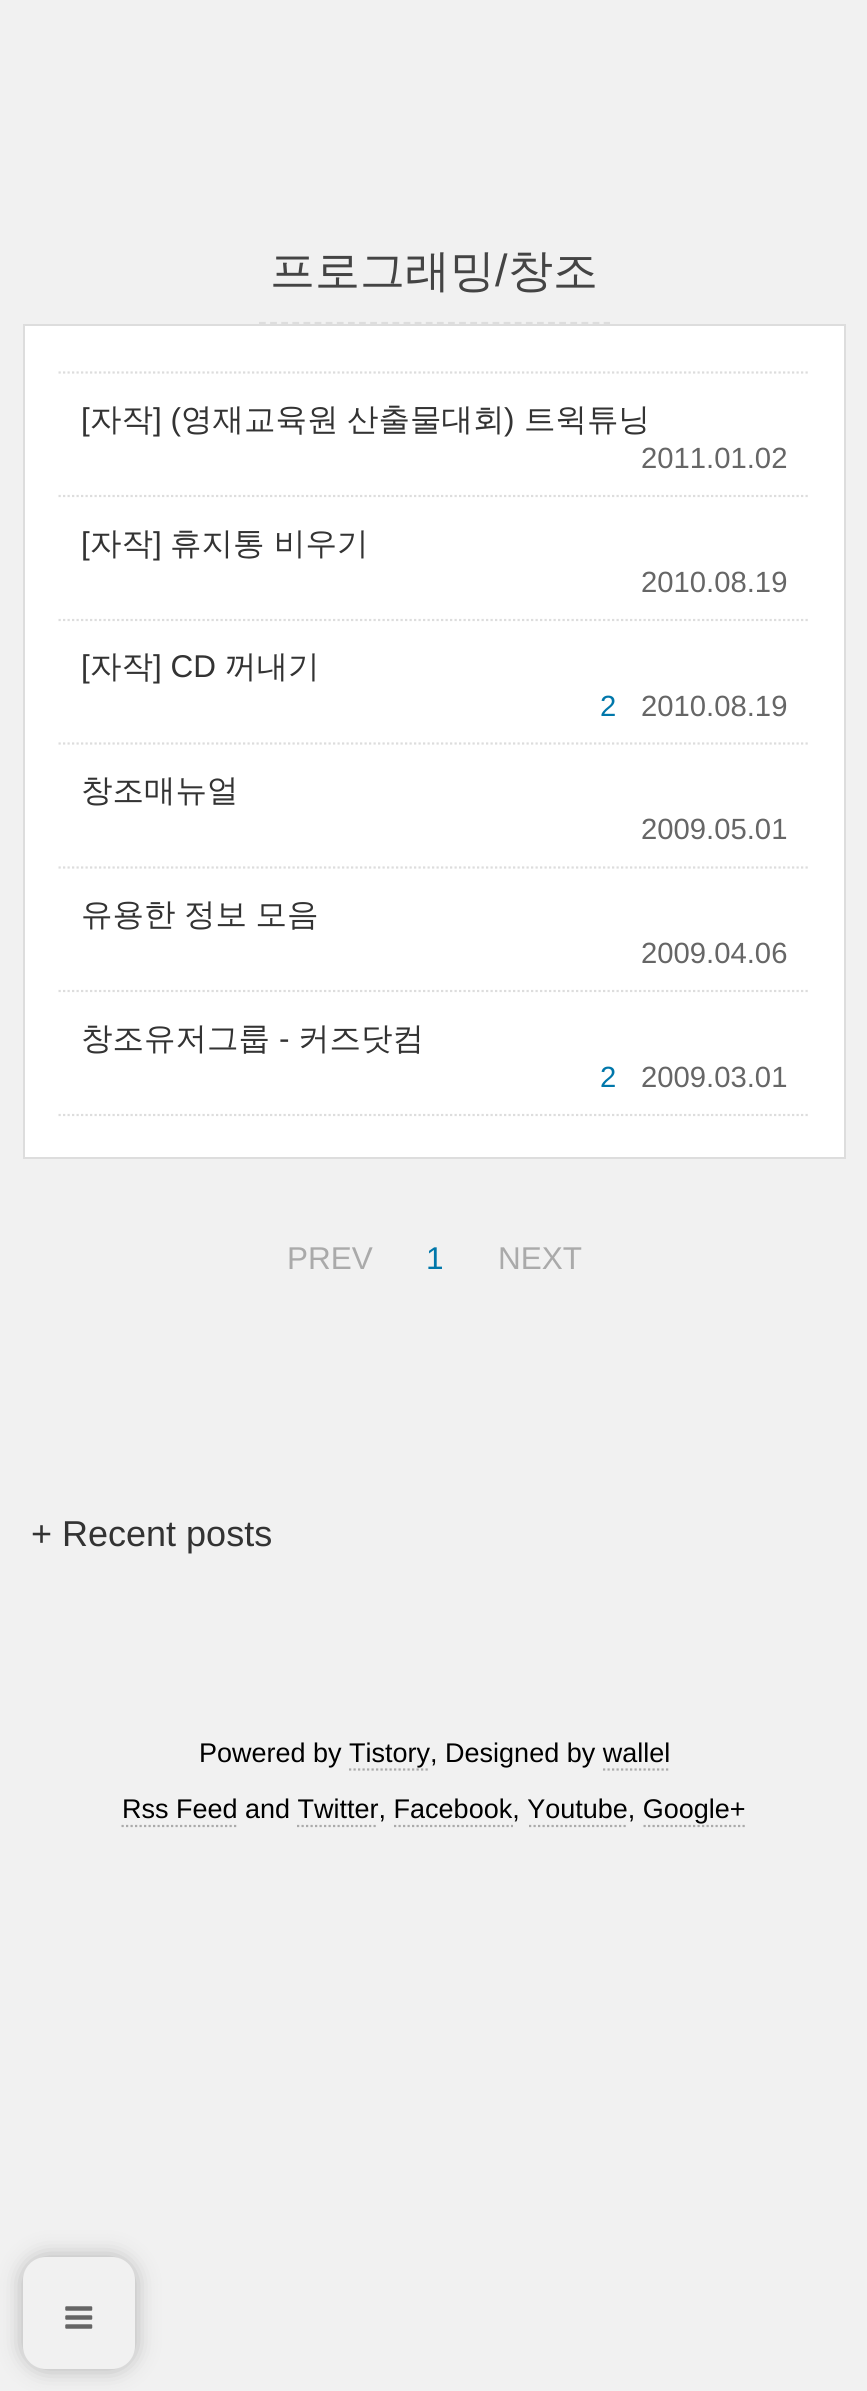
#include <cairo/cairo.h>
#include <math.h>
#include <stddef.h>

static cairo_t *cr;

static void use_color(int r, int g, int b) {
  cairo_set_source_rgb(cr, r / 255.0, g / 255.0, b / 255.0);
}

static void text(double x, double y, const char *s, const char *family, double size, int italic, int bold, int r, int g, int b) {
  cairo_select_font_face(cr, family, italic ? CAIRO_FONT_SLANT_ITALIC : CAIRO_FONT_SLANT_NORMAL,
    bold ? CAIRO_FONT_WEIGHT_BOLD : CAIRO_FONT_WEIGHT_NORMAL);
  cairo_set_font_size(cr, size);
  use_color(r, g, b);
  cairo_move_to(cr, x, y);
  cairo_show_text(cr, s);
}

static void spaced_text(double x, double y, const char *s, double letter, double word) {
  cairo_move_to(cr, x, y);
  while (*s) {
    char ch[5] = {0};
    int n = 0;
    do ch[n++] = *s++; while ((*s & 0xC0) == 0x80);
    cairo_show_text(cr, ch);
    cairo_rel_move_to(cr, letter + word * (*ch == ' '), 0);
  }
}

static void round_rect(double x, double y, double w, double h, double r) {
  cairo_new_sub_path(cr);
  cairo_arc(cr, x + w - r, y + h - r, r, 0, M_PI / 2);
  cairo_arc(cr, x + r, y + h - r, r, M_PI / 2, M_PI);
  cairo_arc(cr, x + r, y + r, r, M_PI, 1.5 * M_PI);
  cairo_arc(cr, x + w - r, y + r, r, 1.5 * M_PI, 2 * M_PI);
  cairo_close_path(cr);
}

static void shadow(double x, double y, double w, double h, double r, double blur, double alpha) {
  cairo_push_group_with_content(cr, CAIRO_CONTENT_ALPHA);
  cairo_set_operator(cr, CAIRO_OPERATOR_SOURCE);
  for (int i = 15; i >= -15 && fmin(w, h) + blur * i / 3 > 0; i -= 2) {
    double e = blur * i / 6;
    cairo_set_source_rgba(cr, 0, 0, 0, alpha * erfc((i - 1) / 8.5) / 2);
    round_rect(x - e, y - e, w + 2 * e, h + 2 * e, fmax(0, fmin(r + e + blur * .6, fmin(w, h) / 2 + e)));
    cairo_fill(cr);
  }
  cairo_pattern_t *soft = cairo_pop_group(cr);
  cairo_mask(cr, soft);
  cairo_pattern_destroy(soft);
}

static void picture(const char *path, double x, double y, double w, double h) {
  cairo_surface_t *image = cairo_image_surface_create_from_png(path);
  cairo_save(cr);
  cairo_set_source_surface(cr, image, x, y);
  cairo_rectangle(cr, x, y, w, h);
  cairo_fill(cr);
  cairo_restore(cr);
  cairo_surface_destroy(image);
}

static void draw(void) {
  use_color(241, 241, 241);
  cairo_paint(cr);
  use_color(255, 255, 255);
  cairo_rectangle(cr, 24, 325, 821, 833);
  cairo_fill_preserve(cr);
  use_color(221, 221, 221);
  cairo_stroke(cr);
  cairo_new_path(cr);
  cairo_move_to(cr, 259, 323);
  cairo_line_to(cr, 610, 323);
  cairo_set_line_width(cr, 2.2);
  cairo_set_dash(cr, (double[]){6.75, 4.37}, 2, 0);
  cairo_stroke(cr);
  cairo_new_path(cr);
  cairo_move_to(cr, 58.5, 372.5);
  cairo_line_to(cr, 810, 372.5);
  cairo_set_dash(cr, (double[]){2.25, 2.25}, 2, 0);
  cairo_stroke(cr);
  cairo_new_path(cr);
  cairo_move_to(cr, 58.5, 496);
  cairo_line_to(cr, 810, 496);
  cairo_stroke(cr);
  cairo_new_path(cr);
  cairo_move_to(cr, 58.5, 620);
  cairo_line_to(cr, 810, 620);
  cairo_stroke(cr);
  cairo_new_path(cr);
  cairo_move_to(cr, 58.5, 743.5);
  cairo_line_to(cr, 810, 743.5);
  cairo_stroke(cr);
  cairo_new_path(cr);
  cairo_move_to(cr, 58.5, 867.5);
  cairo_line_to(cr, 810, 867.5);
  cairo_stroke(cr);
  cairo_new_path(cr);
  cairo_move_to(cr, 58.5, 991);
  cairo_line_to(cr, 810, 991);
  cairo_stroke(cr);
  cairo_new_path(cr);
  cairo_move_to(cr, 58.5, 1115);
  cairo_line_to(cr, 810, 1115);
  cairo_stroke(cr);
  cairo_new_path(cr);
  cairo_move_to(cr, 349, 1769.5);
  cairo_line_to(cr, 430, 1769.5);
  use_color(170, 170, 170);
  cairo_stroke(cr);
  cairo_new_path(cr);
  cairo_move_to(cr, 603, 1769.5);
  cairo_line_to(cr, 670.5, 1769.5);
  cairo_stroke(cr);
  cairo_new_path(cr);
  cairo_move_to(cr, 121.5, 1826);
  cairo_line_to(cr, 238.5, 1826);
  cairo_stroke(cr);
  cairo_new_path(cr);
  cairo_move_to(cr, 297, 1826);
  cairo_line_to(cr, 378, 1826);
  cairo_stroke(cr);
  cairo_new_path(cr);
  cairo_move_to(cr, 394, 1826);
  cairo_line_to(cr, 513, 1826);
  cairo_stroke(cr);
  cairo_new_path(cr);
  cairo_move_to(cr, 529, 1826);
  cairo_line_to(cr, 628, 1826);
  cairo_stroke(cr);
  cairo_new_path(cr);
  cairo_move_to(cr, 643.5, 1826);
  cairo_line_to(cr, 747, 1826);
  cairo_stroke(cr);
  use_color(177, 177, 177);
  shadow(23, 2257, 112, 112, 23, 11, 1);
  use_color(241, 241, 241);
  round_rect(23, 2257, 112, 112, 23);
  cairo_fill(cr);
  picture("img_01.png", 65, 2306, 28, 23);
  text(270, 286, "프로그래밍", "WenQuanYi Zen Hei Medium", 45, 0, 0, 68, 68, 68);
  text(495, 286, "/", "Liberation Sans", 45, 0, 0, 68, 68, 68);
  text(508, 286, "창조", "WenQuanYi Zen Hei Medium", 45, 0, 0, 68, 68, 68);
  text(81, 430, "[", "Liberation Sans", 31.5, 0, 0, 51, 51, 51);
  text(90, 430, "자작", "WenQuanYi Zen Hei Medium", 31.5, 0, 0, 51, 51, 51);
  text(153, 430, "] (", "Liberation Sans", 31.5, 0, 0, 51, 51, 51);
  text(181, 430, "영재교육원", "WenQuanYi Zen Hei Medium", 31.5, 0, 0, 51, 51, 51);
  text(347, 430, "산출물대회", "WenQuanYi Zen Hei Medium", 31.5, 0, 0, 51, 51, 51);
  text(504, 430, ")", "Liberation Sans", 31.5, 0, 0, 51, 51, 51);
  text(524, 430, "트윅튜닝", "WenQuanYi Zen Hei Medium", 31.5, 0, 0, 51, 51, 51);
  text(641, 468, "2011.01.02", "Liberation Sans", 29.25, 0, 0, 102, 102, 102);
  text(81, 554, "[", "Liberation Sans", 31.5, 0, 0, 51, 51, 51);
  text(90, 554, "자작", "WenQuanYi Zen Hei Medium", 31.5, 0, 0, 51, 51, 51);
  text(153, 554, "]", "Liberation Sans", 31.5, 0, 0, 51, 51, 51);
  text(170, 554, "휴지통 비우기", "WenQuanYi Zen Hei Medium", 31.5, 0, 0, 51, 51, 51);
  text(641, 592, "2010.08.19", "Liberation Sans", 29.25, 0, 0, 102, 102, 102);
  text(81, 677, "[", "Liberation Sans", 31.5, 0, 0, 51, 51, 51);
  text(90, 677, "자작", "WenQuanYi Zen Hei Medium", 31.5, 0, 0, 51, 51, 51);
  text(153, 677, "] CD", "Liberation Sans", 31.5, 0, 0, 51, 51, 51);
  text(225, 677, "꺼내기", "WenQuanYi Zen Hei Medium", 31.5, 0, 0, 51, 51, 51);
  text(600, 716, "2", "Liberation Sans", 29.25, 0, 0, 0, 119, 170);
  text(641, 716, "2010.08.19", "Liberation Sans", 29.25, 0, 0, 102, 102, 102);
  text(81, 801, "창조매뉴얼", "WenQuanYi Zen Hei Medium", 31.5, 0, 0, 51, 51, 51);
  text(641, 839, "2009.05.01", "Liberation Sans", 29.25, 0, 0, 102, 102, 102);
  cairo_select_font_face(cr, "WenQuanYi Zen Hei Medium", CAIRO_FONT_SLANT_NORMAL, CAIRO_FONT_WEIGHT_NORMAL);
  cairo_set_font_size(cr, 31.5);
  use_color(51, 51, 51);
  spaced_text(81, 925, "유용한 정보 모음", 0, -1);
  text(641, 963, "2009.04.06", "Liberation Sans", 29.25, 0, 0, 102, 102, 102);
  text(81, 1049, "창조유저그룹", "WenQuanYi Zen Hei Medium", 31.5, 0, 0, 51, 51, 51);
  text(279, 1049, "-", "Liberation Sans", 31.5, 0, 0, 51, 51, 51);
  text(298, 1049, "커즈닷컴", "WenQuanYi Zen Hei Medium", 31.5, 0, 0, 51, 51, 51);
  text(600, 1087, "2", "Liberation Sans", 29.25, 0, 0, 0, 119, 170);
  text(641, 1087, "2009.03.01", "Liberation Sans", 29.25, 0, 0, 102, 102, 102);
  text(287, 1269, "PREV", "Liberation Sans", 31.5, 0, 0, 170, 170, 170);
  text(426, 1269, "1", "Liberation Sans", 31.5, 0, 0, 0, 119, 170);
  text(498, 1269, "NEXT", "Liberation Sans", 31.5, 0, 0, 170, 170, 170);
  text(31, 1546, "+ Recent posts", "Liberation Sans", 36, 0, 0, 51, 51, 51);
  text(199, 1762, "Powered by Tistory, Designed by wallel", "Liberation Sans", 27, 0, 0, 0, 0, 0);
  text(122, 1818, "Rss Feed and Twitter, Facebook, Youtube, Google+", "Liberation Sans", 27, 0, 0, 0, 0, 0);
}

int main(void) {
  cairo_surface_t *surface = cairo_image_surface_create(CAIRO_FORMAT_RGB24, 867, 2391);
  cr = cairo_create(surface);
  cairo_font_options_t *options = cairo_font_options_create();
  cairo_font_options_set_hint_metrics(options, CAIRO_HINT_METRICS_OFF);
  cairo_font_options_set_hint_style(options, CAIRO_HINT_STYLE_NONE);
  cairo_set_font_options(cr, options);
  cairo_set_miter_limit(cr, 4);
  draw();
  cairo_surface_write_to_png(surface, "out.png");
  cairo_font_options_destroy(options);
  cairo_destroy(cr);
  cairo_surface_destroy(surface);
  return 0;
}
